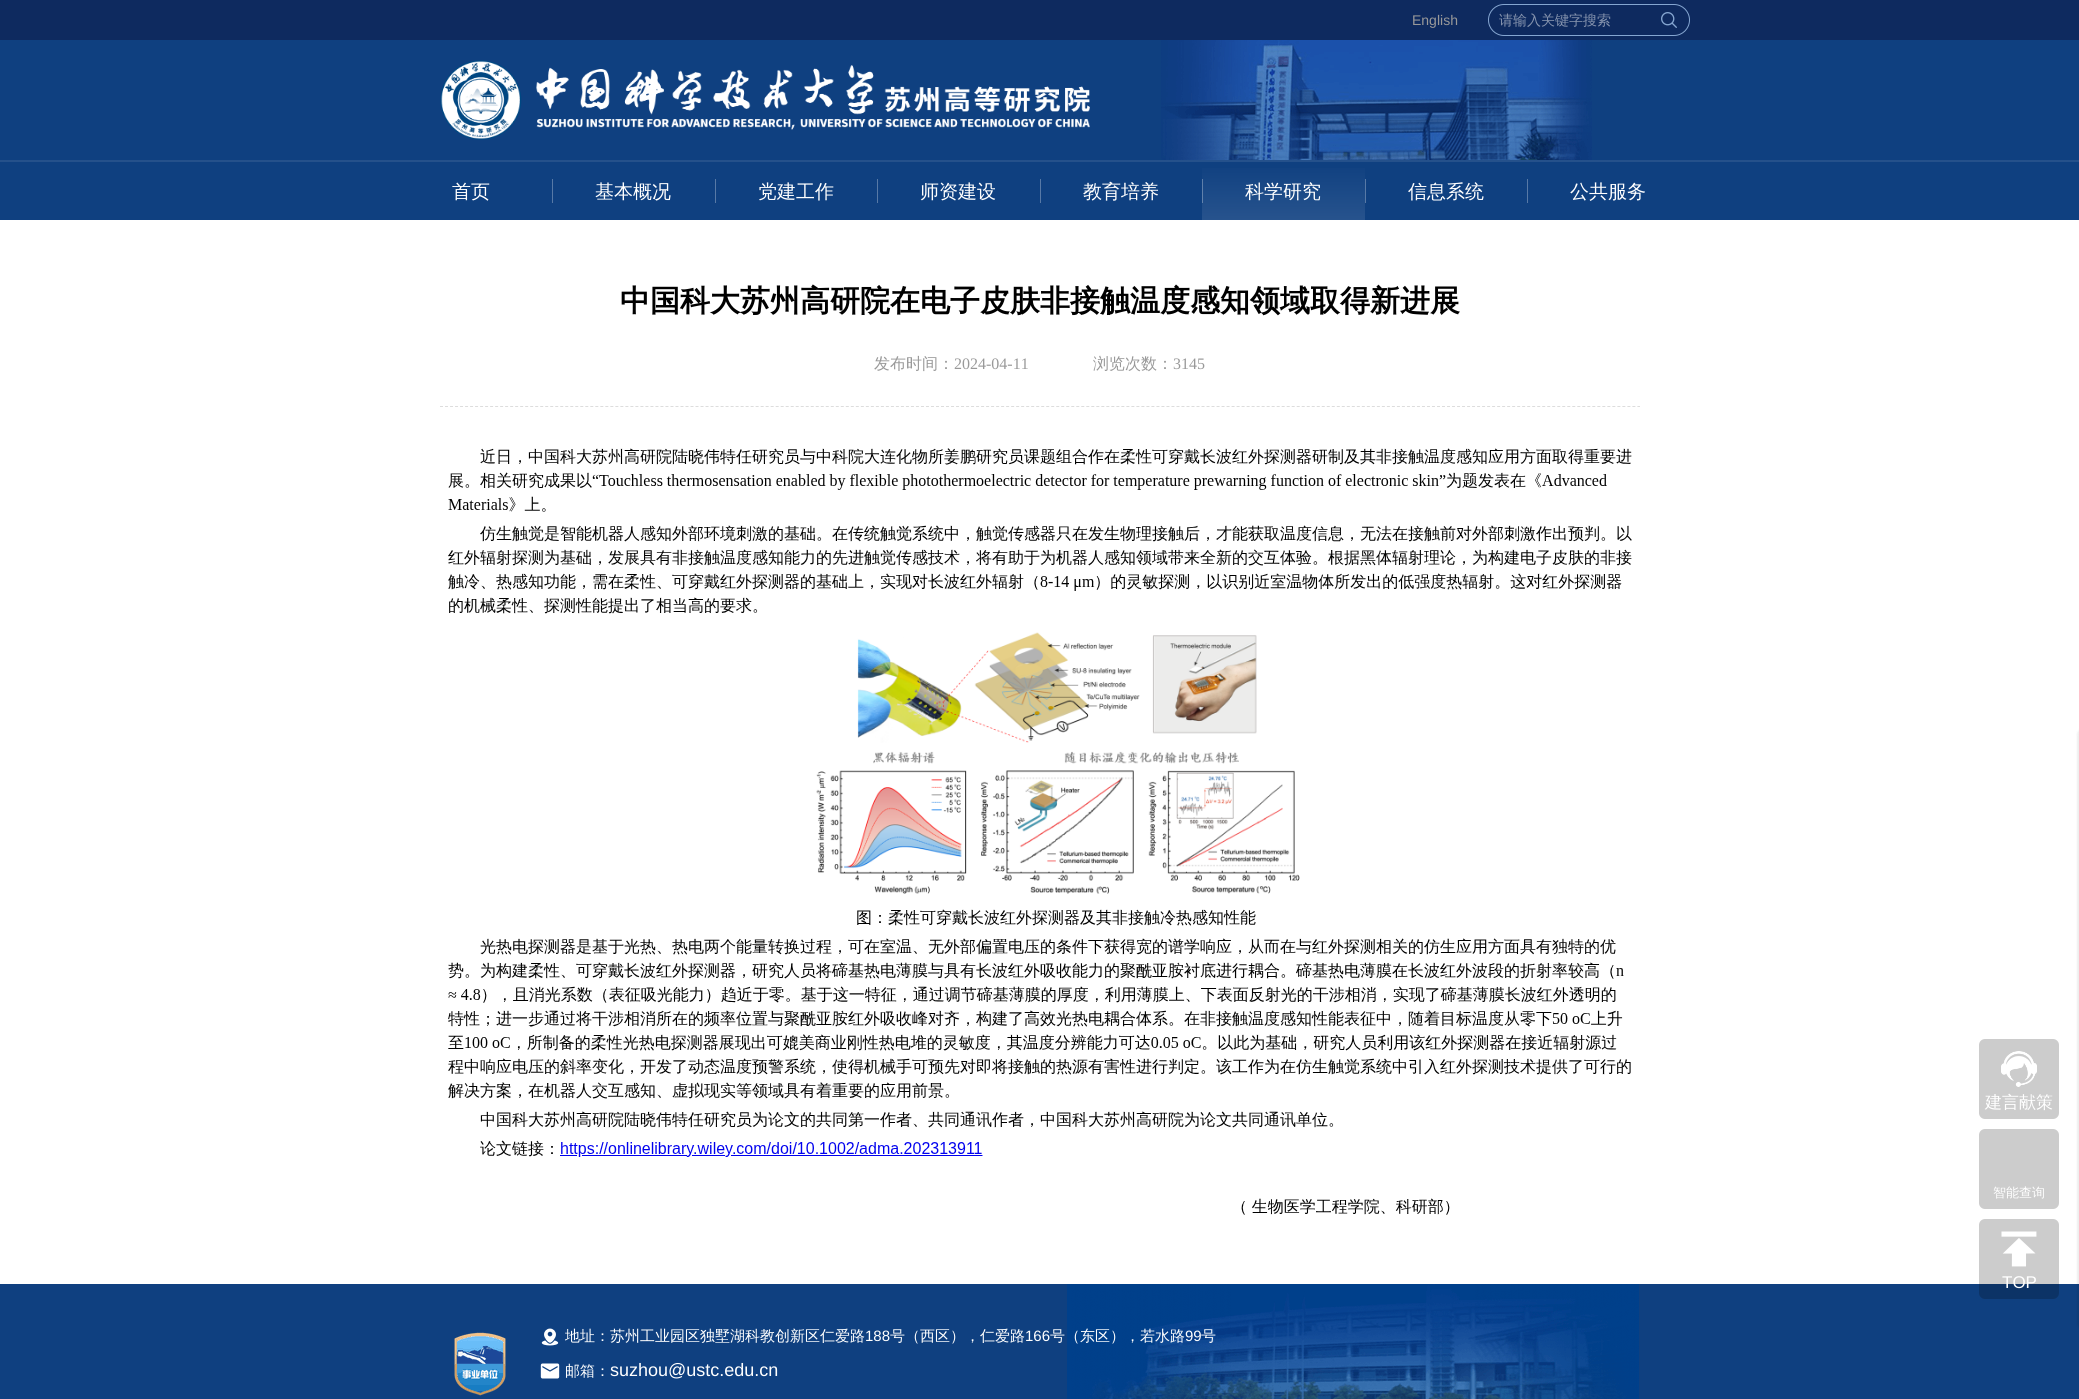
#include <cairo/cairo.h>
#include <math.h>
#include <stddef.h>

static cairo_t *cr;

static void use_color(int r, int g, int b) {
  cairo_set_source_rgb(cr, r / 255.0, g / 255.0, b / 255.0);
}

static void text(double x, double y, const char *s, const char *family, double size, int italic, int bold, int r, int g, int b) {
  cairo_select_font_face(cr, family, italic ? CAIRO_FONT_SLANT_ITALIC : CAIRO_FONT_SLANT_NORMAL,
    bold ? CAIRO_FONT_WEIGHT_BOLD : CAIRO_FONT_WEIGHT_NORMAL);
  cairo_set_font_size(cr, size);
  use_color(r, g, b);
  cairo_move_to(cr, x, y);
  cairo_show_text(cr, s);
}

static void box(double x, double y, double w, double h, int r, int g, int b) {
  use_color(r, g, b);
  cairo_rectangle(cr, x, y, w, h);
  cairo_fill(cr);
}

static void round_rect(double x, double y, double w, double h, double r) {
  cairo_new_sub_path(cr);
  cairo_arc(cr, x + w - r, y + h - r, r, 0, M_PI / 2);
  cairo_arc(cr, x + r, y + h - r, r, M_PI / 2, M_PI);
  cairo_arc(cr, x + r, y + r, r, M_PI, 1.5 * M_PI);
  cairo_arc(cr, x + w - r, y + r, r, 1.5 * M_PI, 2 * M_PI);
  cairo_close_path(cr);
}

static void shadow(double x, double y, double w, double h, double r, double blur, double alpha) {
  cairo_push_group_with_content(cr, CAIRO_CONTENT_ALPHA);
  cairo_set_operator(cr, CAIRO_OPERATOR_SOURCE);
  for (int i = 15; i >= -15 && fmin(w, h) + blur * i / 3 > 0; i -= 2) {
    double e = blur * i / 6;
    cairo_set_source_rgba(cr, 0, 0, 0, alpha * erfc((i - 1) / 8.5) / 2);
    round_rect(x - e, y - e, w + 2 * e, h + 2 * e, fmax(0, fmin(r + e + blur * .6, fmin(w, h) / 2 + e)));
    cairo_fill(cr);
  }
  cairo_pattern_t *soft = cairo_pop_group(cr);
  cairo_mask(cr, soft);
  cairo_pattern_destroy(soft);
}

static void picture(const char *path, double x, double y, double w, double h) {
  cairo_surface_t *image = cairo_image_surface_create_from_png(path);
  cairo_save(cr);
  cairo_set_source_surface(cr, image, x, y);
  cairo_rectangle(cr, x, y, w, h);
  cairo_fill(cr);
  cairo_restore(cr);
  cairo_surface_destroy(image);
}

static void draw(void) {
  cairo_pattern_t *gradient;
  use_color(255, 255, 255);
  cairo_paint(cr);
  box(0, 40, 2079, 120, 15, 64, 128);
  box(0, 0, 2079, 40, 14, 42, 95);
  round_rect(1488.5, 4.5, 201, 31, 15.5);
  use_color(133, 166, 209);
  cairo_set_line_width(cr, 1);
  cairo_stroke(cr);
  picture("img_01.png", 1661, 12, 16, 16);
  picture("img_02.png", 1161, 40, 431, 120);
  picture("img_03.png", 440, 60, 650, 80);
  box(0, 162, 2079, 58, 15, 64, 128);
  box(0, 160, 2079, 2, 37, 81, 139);
  box(552, 179, 1, 24, 87, 121, 166);
  box(715, 179, 1, 24, 87, 121, 166);
  box(877, 179, 1, 24, 87, 121, 166);
  box(1040, 179, 1, 24, 87, 121, 166);
  gradient = cairo_pattern_create_linear(1284, 220, 1284, 162);
  cairo_pattern_add_color_stop_rgba(gradient, 0, 0.153, 0.325, 0.553, 1);
  cairo_pattern_add_color_stop_rgba(gradient, 1, 0.059, 0.251, 0.502, 1);
  cairo_set_source(cr, gradient);
  cairo_pattern_destroy(gradient);
  cairo_rectangle(cr, 1202, 168, 163, 52);
  cairo_fill(cr);
  gradient = cairo_pattern_create_linear(1284, 220, 1284, 162);
  cairo_pattern_add_color_stop_rgba(gradient, 0, 0.408, 0.529, 0.686, 1);
  cairo_pattern_add_color_stop_rgba(gradient, 1, 0.341, 0.475, 0.651, 1);
  cairo_set_source(cr, gradient);
  cairo_pattern_destroy(gradient);
  cairo_rectangle(cr, 1202, 179, 1, 24);
  cairo_fill(cr);
  box(1365, 179, 1, 24, 87, 121, 166);
  box(1527, 179, 1, 24, 87, 121, 166);
  cairo_new_path(cr);
  cairo_move_to(cr, 440, 406.5);
  cairo_line_to(cr, 1640, 406.5);
  use_color(221, 221, 221);
  cairo_set_dash(cr, (double[]){3, 2.01}, 2, 0);
  cairo_stroke(cr);
  picture("img_04.png", 448, 448, 1184, 767);
  box(0, 1284, 2079, 115, 15, 64, 128);
  use_color(204, 204, 204);
  round_rect(1979, 1039, 80, 80, 6);
  cairo_fill(cr);
  picture("img_05.png", 2001, 1051, 36, 36);
  cairo_set_source_rgba(cr, 0, 0, 0, 0.2);
  round_rect(1979, 1219, 80, 80, 6);
  cairo_fill(cr);
  picture("img_06.png", 2001, 1231, 36, 36);
  picture("img_07.png", 1067, 1284, 572, 115);
  picture("img_08.png", 454, 1332, 52, 64);
  picture("img_09.png", 541, 1328, 18, 18);
  picture("img_10.png", 540, 1363, 20, 16);
  use_color(0, 0, 0);
  shadow(2077, 727, 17, 604, 12, 1, 0.07);
  use_color(204, 204, 204);
  round_rect(1979, 1129, 80, 80, 6);
  cairo_fill(cr);
  text(1412, 25, "English", "Liberation Sans", 14, 0, 0, 153, 153, 153);
  text(1499, 25, "请输入关键字搜索", "WenQuanYi Zen Hei Medium", 14, 0, 0, 135, 149, 175);
  text(452, 198, "首页", "WenQuanYi Zen Hei Medium", 19, 0, 0, 255, 255, 255);
  text(595, 198, "基本概况", "WenQuanYi Zen Hei Medium", 19, 0, 0, 255, 255, 255);
  text(758, 198, "党建工作", "WenQuanYi Zen Hei Medium", 19, 0, 0, 255, 255, 255);
  text(920, 198, "师资建设", "WenQuanYi Zen Hei Medium", 19, 0, 0, 255, 255, 255);
  text(1083, 198, "教育培养", "WenQuanYi Zen Hei Medium", 19, 0, 0, 255, 255, 255);
  text(1245, 198, "科学研究", "WenQuanYi Zen Hei Medium", 19, 0, 0, 255, 255, 255);
  text(1408, 198, "信息系统", "WenQuanYi Zen Hei Medium", 19, 0, 0, 255, 255, 255);
  text(1570, 198, "公共服务", "WenQuanYi Zen Hei Medium", 19, 0, 0, 255, 255, 255);
  text(620, 311, "中国科大苏州高研院在电子皮肤非接触温度感知领域取得新进展", "WenQuanYi Zen Hei", 30, 0, 1, 0, 0, 0);
  text(874, 369, "发布时间：", "WenQuanYi Zen Hei Medium", 16, 0, 0, 153, 153, 153);
  text(954, 369, "2024-04-11", "Liberation Serif", 16, 0, 0, 153, 153, 153);
  text(1093, 369, "浏览次数：", "WenQuanYi Zen Hei Medium", 16, 0, 0, 153, 153, 153);
  text(1173, 369, "3145", "Liberation Serif", 16, 0, 0, 153, 153, 153);
  text(1985, 1108, "建言献策", "WenQuanYi Zen Hei Medium", 17, 0, 0, 255, 255, 255);
  text(2002, 1288, "TOP", "Liberation Sans", 17, 0, 0, 255, 255, 255);
  text(565, 1341, "地址：苏州工业园区独墅湖科教创新区仁爱路", "WenQuanYi Zen Hei Medium", 15, 0, 0, 255, 255, 255);
  text(865, 1341, "188", "Liberation Sans", 15, 0, 0, 255, 255, 255);
  text(890, 1341, "号（西区），仁爱路", "WenQuanYi Zen Hei Medium", 15, 0, 0, 255, 255, 255);
  text(1025, 1341, "166", "Liberation Sans", 15, 0, 0, 255, 255, 255);
  text(1050, 1341, "号（东区），若水路", "WenQuanYi Zen Hei Medium", 15, 0, 0, 255, 255, 255);
  text(1185, 1341, "99", "Liberation Sans", 15, 0, 0, 255, 255, 255);
  text(1201, 1341, "号", "WenQuanYi Zen Hei Medium", 15, 0, 0, 255, 255, 255);
  text(565, 1376, "邮箱：", "WenQuanYi Zen Hei Medium", 15, 0, 0, 255, 255, 255);
  text(610, 1376, "suzhou@ustc.edu.cn", "Liberation Sans", 18, 0, 0, 255, 255, 255);
  text(1993, 1197, "智能查询", "WenQuanYi Zen Hei Medium", 13, 0, 0, 255, 255, 255);
}

int main(void) {
  cairo_surface_t *surface = cairo_image_surface_create(CAIRO_FORMAT_RGB24, 2079, 1399);
  cr = cairo_create(surface);
  cairo_font_options_t *options = cairo_font_options_create();
  cairo_font_options_set_hint_metrics(options, CAIRO_HINT_METRICS_OFF);
  cairo_font_options_set_hint_style(options, CAIRO_HINT_STYLE_NONE);
  cairo_set_font_options(cr, options);
  cairo_set_miter_limit(cr, 4);
  draw();
  cairo_surface_write_to_png(surface, "out.png");
  cairo_font_options_destroy(options);
  cairo_destroy(cr);
  cairo_surface_destroy(surface);
  return 0;
}
